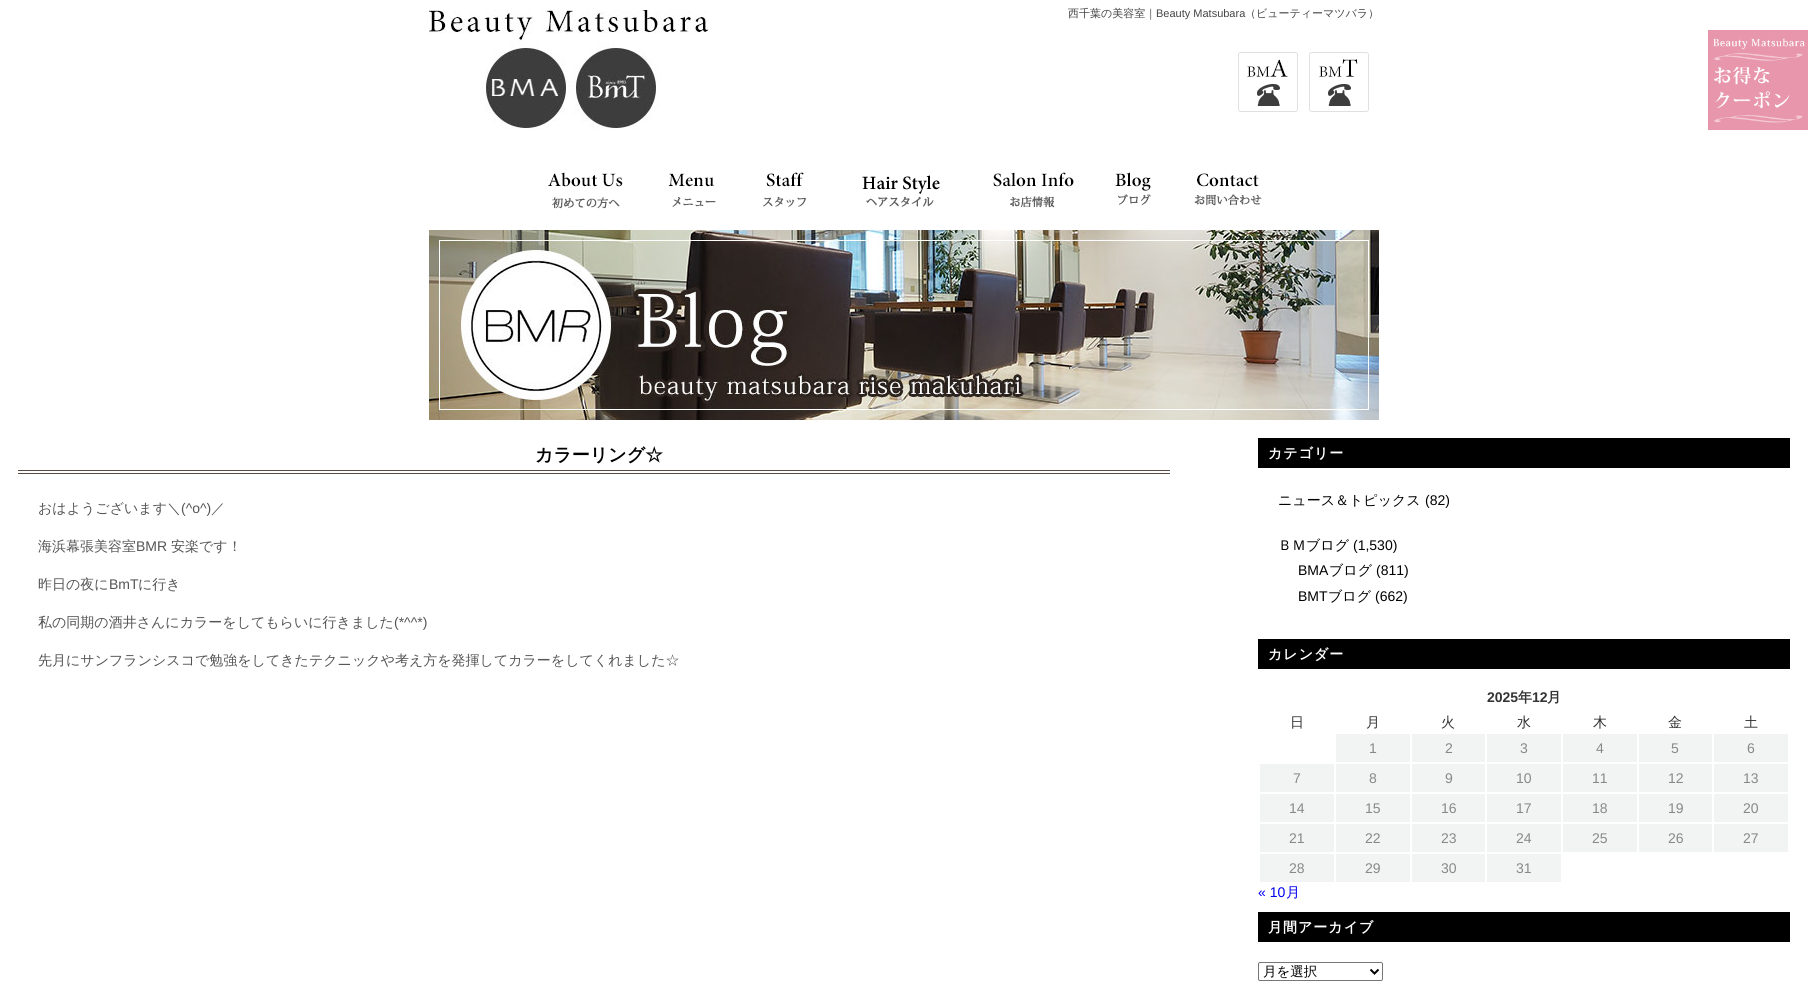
#include <cairo/cairo.h>
#include <math.h>
#include <stddef.h>

static cairo_t *cr;

static void use_color(int r, int g, int b) {
  cairo_set_source_rgb(cr, r / 255.0, g / 255.0, b / 255.0);
}

static void text(double x, double y, const char *s, const char *family, double size, int italic, int bold, int r, int g, int b) {
  cairo_select_font_face(cr, family, italic ? CAIRO_FONT_SLANT_ITALIC : CAIRO_FONT_SLANT_NORMAL,
    bold ? CAIRO_FONT_WEIGHT_BOLD : CAIRO_FONT_WEIGHT_NORMAL);
  cairo_set_font_size(cr, size);
  use_color(r, g, b);
  cairo_move_to(cr, x, y);
  cairo_show_text(cr, s);
}

static void spaced_text(double x, double y, const char *s, double letter, double word) {
  cairo_move_to(cr, x, y);
  while (*s) {
    char ch[5] = {0};
    int n = 0;
    do ch[n++] = *s++; while ((*s & 0xC0) == 0x80);
    cairo_show_text(cr, ch);
    cairo_rel_move_to(cr, letter + word * (*ch == ' '), 0);
  }
}

static void box(double x, double y, double w, double h, int r, int g, int b) {
  use_color(r, g, b);
  cairo_rectangle(cr, x, y, w, h);
  cairo_fill(cr);
}

static void round_rect(double x, double y, double w, double h, double r) {
  cairo_new_sub_path(cr);
  cairo_arc(cr, x + w - r, y + h - r, r, 0, M_PI / 2);
  cairo_arc(cr, x + r, y + h - r, r, M_PI / 2, M_PI);
  cairo_arc(cr, x + r, y + r, r, M_PI, 1.5 * M_PI);
  cairo_arc(cr, x + w - r, y + r, r, 1.5 * M_PI, 2 * M_PI);
  cairo_close_path(cr);
}

static void picture(const char *path, double x, double y, double w, double h) {
  cairo_surface_t *image = cairo_image_surface_create_from_png(path);
  cairo_save(cr);
  cairo_set_source_surface(cr, image, x, y);
  cairo_rectangle(cr, x, y, w, h);
  cairo_fill(cr);
  cairo_restore(cr);
  cairo_surface_destroy(image);
}

static void draw(void) {
  use_color(255, 255, 255);
  cairo_paint(cr);
  picture("img_01.png", 429, 10, 280, 120);
  picture("img_02.png", 1238, 52, 60, 60);
  picture("img_03.png", 1309, 52, 60, 60);
  picture("img_04.png", 1708, 30, 100, 100);
  picture("img_05.png", 548, 172, 75, 37);
  picture("img_06.png", 668, 173, 48, 34);
  picture("img_07.png", 763, 172, 44, 35);
  picture("img_08.png", 862, 175, 78, 32);
  picture("img_09.png", 993, 172, 81, 36);
  picture("img_10.png", 1115, 172, 36, 33);
  picture("img_11.png", 1194, 173, 68, 33);
  picture("img_12.png", 429, 230, 950, 190);
  box(18, 470, 1152, 1, 89, 73, 63);
  box(18, 473, 1152, 1, 89, 73, 63);
  box(1258, 438, 532, 30, 0, 0, 0);
  box(1258, 639, 532, 30, 0, 0, 0);
  box(1336, 734, 74, 28, 242, 243, 243);
  box(1412, 734, 73, 28, 242, 243, 243);
  box(1487, 734, 74, 28, 242, 243, 243);
  box(1563, 734, 74, 28, 242, 243, 243);
  box(1639, 734, 73, 28, 242, 243, 243);
  box(1714, 734, 74, 28, 242, 243, 243);
  box(1260, 764, 74, 28, 242, 243, 243);
  box(1336, 764, 74, 28, 242, 243, 243);
  box(1412, 764, 73, 28, 242, 243, 243);
  box(1487, 764, 74, 28, 242, 243, 243);
  box(1563, 764, 74, 28, 242, 243, 243);
  box(1639, 764, 73, 28, 242, 243, 243);
  box(1714, 764, 74, 28, 242, 243, 243);
  box(1260, 794, 74, 28, 242, 243, 243);
  box(1336, 794, 74, 28, 242, 243, 243);
  box(1412, 794, 73, 28, 242, 243, 243);
  box(1487, 794, 74, 28, 242, 243, 243);
  box(1563, 794, 74, 28, 242, 243, 243);
  box(1639, 794, 73, 28, 242, 243, 243);
  box(1714, 794, 74, 28, 242, 243, 243);
  box(1260, 824, 74, 28, 242, 243, 243);
  box(1336, 824, 74, 28, 242, 243, 243);
  box(1412, 824, 73, 28, 242, 243, 243);
  box(1487, 824, 74, 28, 242, 243, 243);
  box(1563, 824, 74, 28, 242, 243, 243);
  box(1639, 824, 73, 28, 242, 243, 243);
  box(1714, 824, 74, 28, 242, 243, 243);
  box(1260, 854, 74, 28, 242, 243, 243);
  box(1336, 854, 74, 28, 242, 243, 243);
  box(1412, 854, 73, 28, 242, 243, 243);
  box(1487, 854, 74, 28, 242, 243, 243);
  box(1258, 912, 532, 30, 0, 0, 0);
  round_rect(1258.5, 962.5, 124, 18, 1.5);
  use_color(118, 118, 118);
  cairo_set_line_width(cr, 1);
  cairo_stroke(cr);
  cairo_new_path(cr);
  cairo_move_to(cr, 1370.5, 969.5);
  cairo_line_to(cr, 1374.5, 973.5);
  cairo_line_to(cr, 1378.5, 969.5);
  use_color(0, 0, 0);
  cairo_set_line_width(cr, 2);
  cairo_stroke(cr);
  text(1068, 17, "西千葉の美容室｜", "WenQuanYi Zen Hei Medium", 11, 0, 0, 68, 68, 68);
  text(1156, 17, "Beauty Matsubara", "Liberation Sans", 11, 0, 0, 68, 68, 68);
  text(1245, 17, "（ビューティーマツバラ）", "WenQuanYi Zen Hei Medium", 11, 0, 0, 68, 68, 68);
  text(535, 461, "カラーリング☆", "WenQuanYi Zen Hei", 18, 0, 1, 0, 0, 0);
  text(38, 513, "おはようございます＼", "WenQuanYi Zen Hei Medium", 14, 0, 0, 85, 85, 85);
  text(181, 513, "(^o^)", "Liberation Sans", 14, 0, 0, 85, 85, 85);
  text(211, 513, "／", "WenQuanYi Zen Hei Medium", 14, 0, 0, 85, 85, 85);
  text(38, 551, "海浜幕張美容室", "WenQuanYi Zen Hei Medium", 14, 0, 0, 85, 85, 85);
  text(136, 551, "BMR", "Liberation Sans", 14, 0, 0, 85, 85, 85);
  text(171, 551, "安楽です！", "WenQuanYi Zen Hei Medium", 14, 0, 0, 85, 85, 85);
  text(38, 589, "昨日の夜に", "WenQuanYi Zen Hei Medium", 14, 0, 0, 85, 85, 85);
  text(109, 589, "BmT", "Liberation Sans", 14, 0, 0, 85, 85, 85);
  text(138, 589, "に行き", "WenQuanYi Zen Hei Medium", 14, 0, 0, 85, 85, 85);
  text(38, 627, "私の同期の酒井さんにカラーをしてもらいに行きました", "WenQuanYi Zen Hei Medium", 14, 0, 0, 85, 85, 85);
  text(394, 627, "(*^^*)", "Liberation Sans", 14, 0, 0, 85, 85, 85);
  text(38, 665, "先月にサンフランシスコで勉強をしてきたテクニックや考え方を発揮してカラーをしてくれました☆", "WenQuanYi Zen Hei Medium", 14, 0, 0, 85, 85, 85);
  cairo_select_font_face(cr, "WenQuanYi Zen Hei", CAIRO_FONT_SLANT_NORMAL, CAIRO_FONT_WEIGHT_BOLD);
  use_color(255, 255, 255);
  spaced_text(1268, 458, "カテゴリー", 1, 0);
  text(1278, 505, "ニュース＆トピックス", "WenQuanYi Zen Hei Medium", 14, 0, 0, 0, 0, 0);
  text(1425, 505, "(82)", "Liberation Sans", 14, 0, 0, 0, 0, 0);
  text(1278, 550, "ＢＭブログ", "WenQuanYi Zen Hei Medium", 14, 0, 0, 0, 0, 0);
  text(1353, 550, "(1,530)", "Liberation Sans", 14, 0, 0, 0, 0, 0);
  text(1298, 575, "BMA", "Liberation Sans", 14, 0, 0, 0, 0, 0);
  text(1329, 575, "ブログ", "WenQuanYi Zen Hei Medium", 14, 0, 0, 0, 0, 0);
  text(1376, 575, "(811)", "Liberation Sans", 14, 0, 0, 0, 0, 0);
  text(1298, 601, "BMT", "Liberation Sans", 14, 0, 0, 0, 0, 0);
  text(1328, 601, "ブログ", "WenQuanYi Zen Hei Medium", 14, 0, 0, 0, 0, 0);
  text(1375, 601, "(662)", "Liberation Sans", 14, 0, 0, 0, 0, 0);
  cairo_select_font_face(cr, "WenQuanYi Zen Hei", CAIRO_FONT_SLANT_NORMAL, CAIRO_FONT_WEIGHT_BOLD);
  use_color(255, 255, 255);
  spaced_text(1268, 659, "カレンダー", 1, 0);
  text(1487, 702, "2025", "Liberation Sans", 14, 0, 1, 51, 51, 51);
  text(1518, 702, "年", "WenQuanYi Zen Hei", 14, 0, 1, 51, 51, 51);
  text(1532, 702, "12", "Liberation Sans", 14, 0, 1, 51, 51, 51);
  text(1547, 702, "月", "WenQuanYi Zen Hei", 14, 0, 1, 51, 51, 51);
  text(1290, 727, "日", "WenQuanYi Zen Hei Medium", 14, 0, 0, 51, 51, 51);
  text(1366, 727, "月", "WenQuanYi Zen Hei Medium", 14, 0, 0, 51, 51, 51);
  text(1441, 727, "火", "WenQuanYi Zen Hei Medium", 14, 0, 0, 51, 51, 51);
  text(1517, 727, "水", "WenQuanYi Zen Hei Medium", 14, 0, 0, 51, 51, 51);
  text(1593, 727, "木", "WenQuanYi Zen Hei Medium", 14, 0, 0, 51, 51, 51);
  text(1668, 727, "金", "WenQuanYi Zen Hei Medium", 14, 0, 0, 51, 51, 51);
  text(1744, 727, "土", "WenQuanYi Zen Hei Medium", 14, 0, 0, 51, 51, 51);
  text(1369, 753, "1", "Liberation Sans", 14, 0, 0, 136, 136, 136);
  text(1445, 753, "2", "Liberation Sans", 14, 0, 0, 136, 136, 136);
  text(1520, 753, "3", "Liberation Sans", 14, 0, 0, 136, 136, 136);
  text(1596, 753, "4", "Liberation Sans", 14, 0, 0, 136, 136, 136);
  text(1671, 753, "5", "Liberation Sans", 14, 0, 0, 136, 136, 136);
  text(1747, 753, "6", "Liberation Sans", 14, 0, 0, 136, 136, 136);
  text(1293, 783, "7", "Liberation Sans", 14, 0, 0, 136, 136, 136);
  text(1369, 783, "8", "Liberation Sans", 14, 0, 0, 136, 136, 136);
  text(1445, 783, "9", "Liberation Sans", 14, 0, 0, 136, 136, 136);
  text(1516, 783, "10", "Liberation Sans", 14, 0, 0, 136, 136, 136);
  text(1592, 783, "11", "Liberation Sans", 14, 0, 0, 136, 136, 136);
  text(1668, 783, "12", "Liberation Sans", 14, 0, 0, 136, 136, 136);
  text(1743, 783, "13", "Liberation Sans", 14, 0, 0, 136, 136, 136);
  text(1289, 813, "14", "Liberation Sans", 14, 0, 0, 136, 136, 136);
  text(1365, 813, "15", "Liberation Sans", 14, 0, 0, 136, 136, 136);
  text(1441, 813, "16", "Liberation Sans", 14, 0, 0, 136, 136, 136);
  text(1516, 813, "17", "Liberation Sans", 14, 0, 0, 136, 136, 136);
  text(1592, 813, "18", "Liberation Sans", 14, 0, 0, 136, 136, 136);
  text(1668, 813, "19", "Liberation Sans", 14, 0, 0, 136, 136, 136);
  text(1743, 813, "20", "Liberation Sans", 14, 0, 0, 136, 136, 136);
  text(1289, 843, "21", "Liberation Sans", 14, 0, 0, 136, 136, 136);
  text(1365, 843, "22", "Liberation Sans", 14, 0, 0, 136, 136, 136);
  text(1441, 843, "23", "Liberation Sans", 14, 0, 0, 136, 136, 136);
  text(1516, 843, "24", "Liberation Sans", 14, 0, 0, 136, 136, 136);
  text(1592, 843, "25", "Liberation Sans", 14, 0, 0, 136, 136, 136);
  text(1668, 843, "26", "Liberation Sans", 14, 0, 0, 136, 136, 136);
  text(1743, 843, "27", "Liberation Sans", 14, 0, 0, 136, 136, 136);
  text(1289, 873, "28", "Liberation Sans", 14, 0, 0, 136, 136, 136);
  text(1365, 873, "29", "Liberation Sans", 14, 0, 0, 136, 136, 136);
  text(1441, 873, "30", "Liberation Sans", 14, 0, 0, 136, 136, 136);
  text(1516, 873, "31", "Liberation Sans", 14, 0, 0, 136, 136, 136);
  text(1258, 897, "« 10", "Liberation Sans", 14, 0, 0, 0, 0, 238);
  text(1286, 897, "月", "WenQuanYi Zen Hei Medium", 14, 0, 0, 0, 0, 238);
  cairo_select_font_face(cr, "WenQuanYi Zen Hei", CAIRO_FONT_SLANT_NORMAL, CAIRO_FONT_WEIGHT_BOLD);
  use_color(255, 255, 255);
  spaced_text(1268, 932, "月間アーカイブ", 1, 0);
  text(1263, 976, "月を選択", "WenQuanYi Zen Hei Medium", 13.5, 0, 0, 0, 0, 0);
}

int main(void) {
  cairo_surface_t *surface = cairo_image_surface_create(CAIRO_FORMAT_RGB24, 1808, 985);
  cr = cairo_create(surface);
  cairo_font_options_t *options = cairo_font_options_create();
  cairo_font_options_set_hint_metrics(options, CAIRO_HINT_METRICS_OFF);
  cairo_font_options_set_hint_style(options, CAIRO_HINT_STYLE_NONE);
  cairo_set_font_options(cr, options);
  cairo_set_miter_limit(cr, 4);
  draw();
  cairo_surface_write_to_png(surface, "out.png");
  cairo_font_options_destroy(options);
  cairo_destroy(cr);
  cairo_surface_destroy(surface);
  return 0;
}
